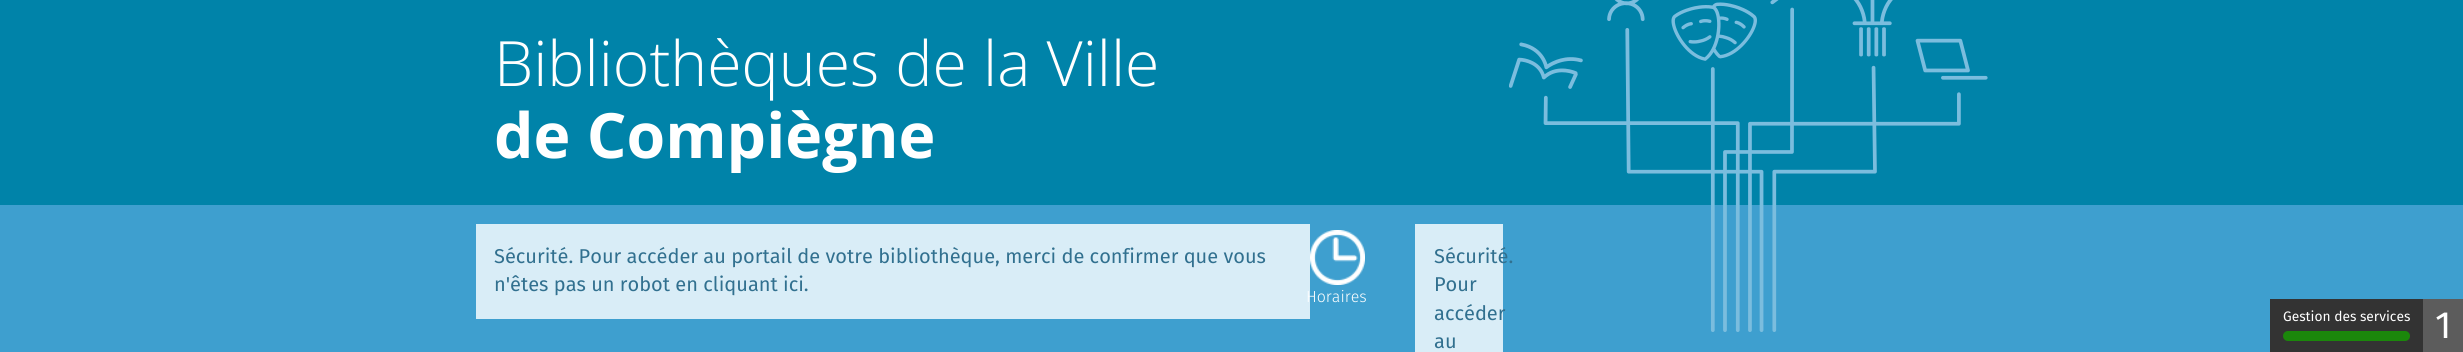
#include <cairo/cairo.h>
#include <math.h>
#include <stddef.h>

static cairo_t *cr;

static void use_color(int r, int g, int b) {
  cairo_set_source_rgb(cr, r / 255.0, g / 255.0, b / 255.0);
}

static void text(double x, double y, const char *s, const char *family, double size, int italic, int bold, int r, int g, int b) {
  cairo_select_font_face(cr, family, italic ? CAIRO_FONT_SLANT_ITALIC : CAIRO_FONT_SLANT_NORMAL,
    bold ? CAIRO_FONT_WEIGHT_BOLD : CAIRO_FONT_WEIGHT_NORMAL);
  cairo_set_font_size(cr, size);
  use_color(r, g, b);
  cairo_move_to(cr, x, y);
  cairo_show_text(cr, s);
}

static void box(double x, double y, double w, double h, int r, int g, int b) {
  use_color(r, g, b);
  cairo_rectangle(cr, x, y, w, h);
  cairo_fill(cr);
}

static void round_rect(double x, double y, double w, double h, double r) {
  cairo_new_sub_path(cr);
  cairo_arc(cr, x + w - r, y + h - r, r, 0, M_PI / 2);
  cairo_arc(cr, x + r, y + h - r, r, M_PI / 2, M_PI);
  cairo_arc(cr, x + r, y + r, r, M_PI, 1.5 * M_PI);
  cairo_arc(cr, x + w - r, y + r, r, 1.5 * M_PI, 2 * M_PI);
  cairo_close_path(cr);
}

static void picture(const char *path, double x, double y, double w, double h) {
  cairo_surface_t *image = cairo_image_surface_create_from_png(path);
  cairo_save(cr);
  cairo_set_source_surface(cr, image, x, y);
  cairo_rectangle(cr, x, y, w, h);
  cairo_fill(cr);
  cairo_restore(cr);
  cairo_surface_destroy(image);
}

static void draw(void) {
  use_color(0, 131, 169);
  cairo_paint(cr);
  box(0, 205, 2463, 147, 62, 159, 207);
  box(476, 224, 834, 95, 217, 237, 247);
  picture("img_01.png", 1310, 230, 55, 55);
  box(1415, 224, 88, 128, 217, 237, 247);
  box(2270, 299, 153, 53, 51, 51, 51);
  use_color(27, 135, 11);
  round_rect(2283, 331, 127, 10, 5);
  cairo_fill(cr);
  box(2423, 299, 40, 53, 92, 92, 92);
  text(494, 86, "Bibliothèques de la Ville", "Open Sans Light", 62.5, 0, 0, 255, 255, 255);
  text(494, 158, "de Compiègne", "Open Sans", 62.5, 0, 1, 255, 255, 255);
  text(494, 263, "Sécurité. Pour accéder au portail de votre bibliothèque, merci de confirmer que vous", "Fira Sans", 20, 0, 0, 49, 112, 143);
  text(494, 291, "n'êtes pas un robot en cliquant ici.", "Fira Sans", 20, 0, 0, 49, 112, 143);
  text(1306, 302, "Horaires", "Fira Sans Light", 16, 0, 0, 255, 255, 255);
  text(1434, 263, "Sécurité.", "Fira Sans", 20, 0, 0, 49, 112, 143);
  text(1434, 291, "Pour", "Fira Sans", 20, 0, 0, 49, 112, 143);
  text(1434, 320, "accéder", "Fira Sans", 20, 0, 0, 49, 112, 143);
  text(1434, 348, "au", "Fira Sans", 20, 0, 0, 49, 112, 143);
  picture("img_02.png", 1509, 0, 479, 332);
  text(2283, 321, "Gestion des services", "Fira Sans", 13.75, 0, 0, 255, 255, 255);
  text(2435, 338, "1", "Fira Sans", 38, 0, 0, 255, 255, 255);
}

int main(void) {
  cairo_surface_t *surface = cairo_image_surface_create(CAIRO_FORMAT_RGB24, 2463, 352);
  cr = cairo_create(surface);
  cairo_font_options_t *options = cairo_font_options_create();
  cairo_font_options_set_hint_metrics(options, CAIRO_HINT_METRICS_OFF);
  cairo_font_options_set_hint_style(options, CAIRO_HINT_STYLE_NONE);
  cairo_set_font_options(cr, options);
  cairo_set_miter_limit(cr, 4);
  draw();
  cairo_surface_write_to_png(surface, "out.png");
  cairo_font_options_destroy(options);
  cairo_destroy(cr);
  cairo_surface_destroy(surface);
  return 0;
}
